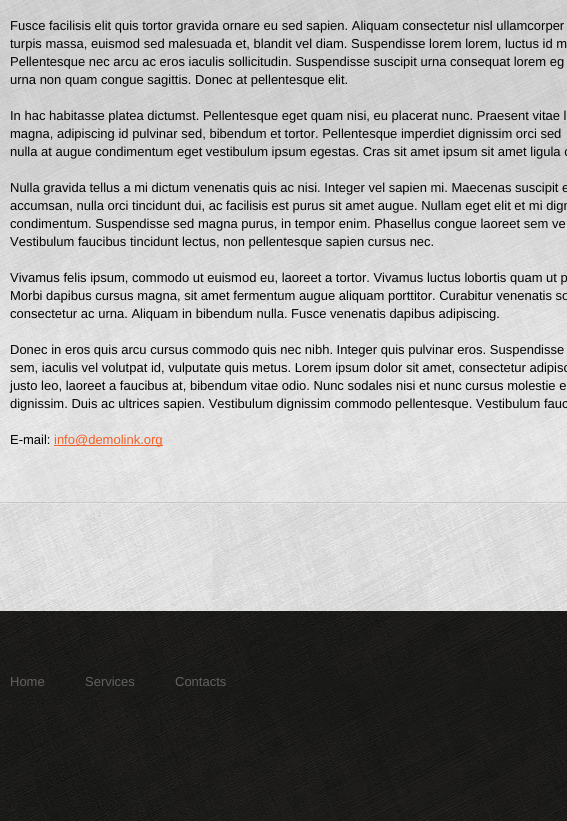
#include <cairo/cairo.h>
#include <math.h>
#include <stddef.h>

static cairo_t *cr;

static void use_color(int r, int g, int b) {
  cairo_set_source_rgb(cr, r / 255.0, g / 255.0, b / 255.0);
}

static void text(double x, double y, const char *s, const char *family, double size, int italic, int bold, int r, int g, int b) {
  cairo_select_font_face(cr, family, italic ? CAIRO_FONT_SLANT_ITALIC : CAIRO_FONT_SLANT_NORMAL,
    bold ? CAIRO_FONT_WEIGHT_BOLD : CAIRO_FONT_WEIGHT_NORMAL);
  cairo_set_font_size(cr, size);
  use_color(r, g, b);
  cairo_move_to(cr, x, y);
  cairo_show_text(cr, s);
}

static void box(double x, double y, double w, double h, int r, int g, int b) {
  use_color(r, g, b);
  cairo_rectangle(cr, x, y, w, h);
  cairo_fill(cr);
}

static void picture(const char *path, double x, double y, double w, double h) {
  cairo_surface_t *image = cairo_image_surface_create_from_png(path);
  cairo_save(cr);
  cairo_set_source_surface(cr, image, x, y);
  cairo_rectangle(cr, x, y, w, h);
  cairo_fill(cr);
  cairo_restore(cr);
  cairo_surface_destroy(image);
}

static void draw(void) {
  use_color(255, 255, 255);
  cairo_paint(cr);
  picture("img_01.png", 0, 425, 567, 77);
  picture("img_02.png", 0, 0, 567, 425);
  box(54, 445, 109, 1, 245, 94, 37);
  picture("img_03.png", 0, 504, 567, 107);
  picture("img_04.png", 0, 502, 567, 2);
  picture("img_05.png", 0, 611, 567, 210);
  text(10, 30, "Fusce facilisis elit quis tortor gravida ornare eu sed sapien. Aliquam consectetur nisl ullamcorper", "Liberation Sans", 13, 0, 0, 0, 0, 0);
  text(10, 48, "turpis massa, euismod sed malesuada et, blandit vel diam. Suspendisse lorem lorem, luctus id m", "Liberation Sans", 13, 0, 0, 0, 0, 0);
  text(10, 66, "Pellentesque nec arcu ac eros iaculis sollicitudin. Suspendisse suscipit urna consequat lorem eg", "Liberation Sans", 13, 0, 0, 0, 0, 0);
  text(10, 84, "urna non quam congue sagittis. Donec at pellentesque elit.", "Liberation Sans", 13, 0, 0, 0, 0, 0);
  text(10, 120, "In hac habitasse platea dictumst. Pellentesque eget quam nisi, eu placerat nunc. Praesent vitae l", "Liberation Sans", 13, 0, 0, 0, 0, 0);
  text(10, 138, "magna, adipiscing id pulvinar sed, bibendum et tortor. Pellentesque imperdiet dignissim orci sed", "Liberation Sans", 13, 0, 0, 0, 0, 0);
  text(10, 156, "nulla at augue condimentum eget vestibulum ipsum egestas. Cras sit amet ipsum sit amet ligula c", "Liberation Sans", 13, 0, 0, 0, 0, 0);
  text(10, 192, "Nulla gravida tellus a mi dictum venenatis quis ac nisi. Integer vel sapien mi. Maecenas suscipit e", "Liberation Sans", 13, 0, 0, 0, 0, 0);
  text(10, 210, "accumsan, nulla orci tincidunt dui, ac facilisis est purus sit amet augue. Nullam eget elit et mi dign", "Liberation Sans", 13, 0, 0, 0, 0, 0);
  text(10, 228, "condimentum. Suspendisse sed magna purus, in tempor enim. Phasellus congue laoreet sem ve", "Liberation Sans", 13, 0, 0, 0, 0, 0);
  text(10, 246, "Vestibulum faucibus tincidunt lectus, non pellentesque sapien cursus nec.", "Liberation Sans", 13, 0, 0, 0, 0, 0);
  text(10, 282, "Vivamus felis ipsum, commodo ut euismod eu, laoreet a tortor. Vivamus luctus lobortis quam ut p", "Liberation Sans", 13, 0, 0, 0, 0, 0);
  text(10, 300, "Morbi dapibus cursus magna, sit amet fermentum augue aliquam porttitor. Curabitur venenatis so", "Liberation Sans", 13, 0, 0, 0, 0, 0);
  text(10, 318, "consectetur ac urna. Aliquam in bibendum nulla. Fusce venenatis dapibus adipiscing.", "Liberation Sans", 13, 0, 0, 0, 0, 0);
  text(10, 354, "Donec in eros quis arcu cursus commodo quis nec nibh. Integer quis pulvinar eros. Suspendisse", "Liberation Sans", 13, 0, 0, 0, 0, 0);
  text(10, 372, "sem, iaculis vel volutpat id, vulputate quis metus. Lorem ipsum dolor sit amet, consectetur adipisc", "Liberation Sans", 13, 0, 0, 0, 0, 0);
  text(10, 390, "justo leo, laoreet a faucibus at, bibendum vitae odio. Nunc sodales nisi et nunc cursus molestie e", "Liberation Sans", 13, 0, 0, 0, 0, 0);
  text(10, 408, "dignissim. Duis ac ultrices sapien. Vestibulum dignissim commodo pellentesque. Vestibulum fauc", "Liberation Sans", 13, 0, 0, 0, 0, 0);
  text(10, 444, "E-mail:", "Liberation Sans", 13, 0, 0, 0, 0, 0);
  text(54, 444, "info@demolink.org", "Liberation Sans", 13, 0, 0, 245, 94, 37);
  text(10, 686, "Home", "Liberation Sans", 13, 0, 0, 99, 97, 96);
  text(85, 686, "Services", "Liberation Sans", 13, 0, 0, 99, 97, 96);
  text(175, 686, "Contacts", "Liberation Sans", 13, 0, 0, 99, 97, 96);
}

int main(void) {
  cairo_surface_t *surface = cairo_image_surface_create(CAIRO_FORMAT_RGB24, 567, 821);
  cr = cairo_create(surface);
  cairo_font_options_t *options = cairo_font_options_create();
  cairo_font_options_set_hint_metrics(options, CAIRO_HINT_METRICS_OFF);
  cairo_font_options_set_hint_style(options, CAIRO_HINT_STYLE_NONE);
  cairo_set_font_options(cr, options);
  cairo_set_miter_limit(cr, 4);
  draw();
  cairo_surface_write_to_png(surface, "out.png");
  cairo_font_options_destroy(options);
  cairo_destroy(cr);
  cairo_surface_destroy(surface);
  return 0;
}
